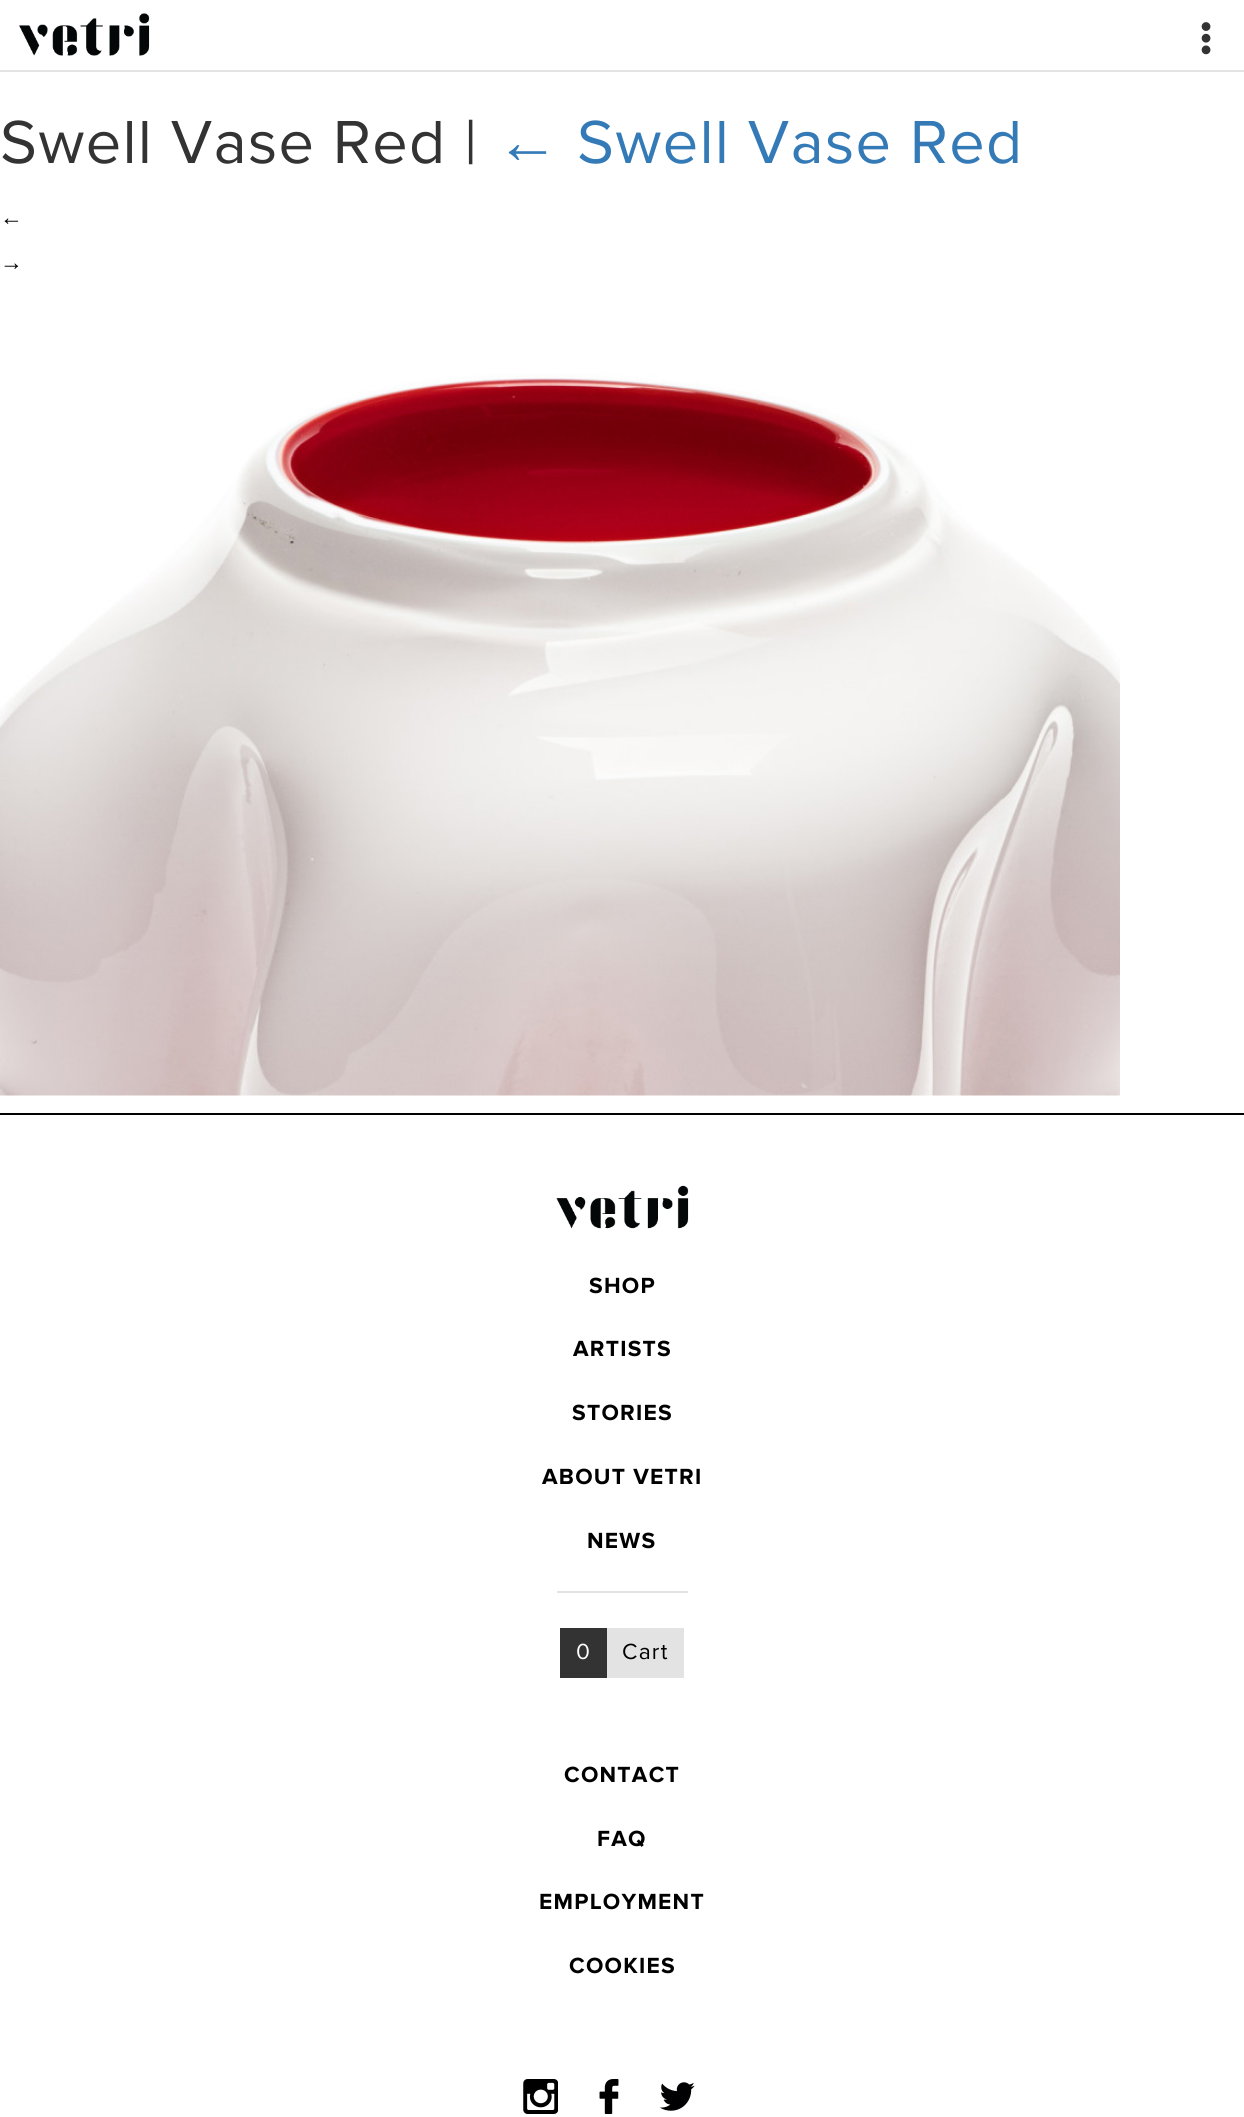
#include <cairo/cairo.h>
#include <math.h>
#include <stddef.h>

static cairo_t *cr;

static void use_color(int r, int g, int b) {
  cairo_set_source_rgb(cr, r / 255.0, g / 255.0, b / 255.0);
}

static void spaced_text(double x, double y, const char *s, double letter, double word) {
  cairo_move_to(cr, x, y);
  while (*s) {
    char ch[5] = {0};
    int n = 0;
    do ch[n++] = *s++; while ((*s & 0xC0) == 0x80);
    cairo_show_text(cr, ch);
    cairo_rel_move_to(cr, letter + word * (*ch == ' '), 0);
  }
}

static void box(double x, double y, double w, double h, int r, int g, int b) {
  use_color(r, g, b);
  cairo_rectangle(cr, x, y, w, h);
  cairo_fill(cr);
}

static void picture(const char *path, double x, double y, double w, double h) {
  cairo_surface_t *image = cairo_image_surface_create_from_png(path);
  cairo_save(cr);
  cairo_set_source_surface(cr, image, x, y);
  cairo_rectangle(cr, x, y, w, h);
  cairo_fill(cr);
  cairo_restore(cr);
  cairo_surface_destroy(image);
}

static void draw(void) {
  use_color(255, 255, 255);
  cairo_paint(cr);
  box(0, 70, 1244, 2, 227, 227, 227);
  picture("img_01.png", 19, 13, 131, 43);
  picture("img_02.png", 1201, 22, 10, 33);
  picture("img_03.png", 0, 373, 1120, 723);
  box(0, 1113, 1244, 2, 0, 0, 0);
  picture("img_04.png", 556, 1185, 133, 44);
  box(557, 1591, 131, 2, 227, 227, 227);
  box(560, 1628, 47, 50, 51, 51, 51);
  box(607, 1628, 77, 50, 227, 227, 227);
  picture("img_05.png", 523, 2079, 35, 35);
  picture("img_06.png", 599, 2079, 20, 35);
  picture("img_07.png", 660, 2082, 35, 29);
  cairo_select_font_face(cr, "Proxima Nova", CAIRO_FONT_SLANT_NORMAL, CAIRO_FONT_WEIGHT_NORMAL);
  cairo_set_font_size(cr, 63);
  use_color(51, 51, 51);
  spaced_text(0, 163, "Swell Vase Red |", 1.25, 0);
  cairo_select_font_face(cr, "Liberation Sans", CAIRO_FONT_SLANT_NORMAL, CAIRO_FONT_WEIGHT_NORMAL);
  use_color(51, 122, 183);
  spaced_text(496, 163, "←", 1.25, 0);
  cairo_select_font_face(cr, "Proxima Nova", CAIRO_FONT_SLANT_NORMAL, CAIRO_FONT_WEIGHT_NORMAL);
  spaced_text(577, 163, "Swell Vase Red", 1.25, 0);
  cairo_select_font_face(cr, "Liberation Sans", CAIRO_FONT_SLANT_NORMAL, CAIRO_FONT_WEIGHT_NORMAL);
  cairo_set_font_size(cr, 22.75);
  use_color(0, 0, 0);
  spaced_text(0, 225, "←", 1.25, 0);
  spaced_text(0, 270, "→", 1.25, 0);
  cairo_select_font_face(cr, "Proxima Nova", CAIRO_FONT_SLANT_NORMAL, CAIRO_FONT_WEIGHT_BOLD);
  spaced_text(589, 1293, "SHOP", 1.25, 0);
  spaced_text(573, 1356, "ARTISTS", 1.25, 0);
  spaced_text(572, 1420, "STORIES", 1.25, 0);
  spaced_text(542, 1484, "ABOUT VETRI", 1.25, 0);
  spaced_text(587, 1548, "NEWS", 1.25, 0);
  cairo_select_font_face(cr, "Proxima Nova", CAIRO_FONT_SLANT_NORMAL, CAIRO_FONT_WEIGHT_NORMAL);
  use_color(255, 255, 255);
  spaced_text(576, 1659, "0", 1.25, 0);
  use_color(0, 0, 0);
  spaced_text(622, 1659, "Cart", 1.25, 0);
  cairo_select_font_face(cr, "Proxima Nova", CAIRO_FONT_SLANT_NORMAL, CAIRO_FONT_WEIGHT_BOLD);
  spaced_text(564, 1782, "CONTACT", 1.25, 0);
  spaced_text(597, 1846, "FAQ", 1.25, 0);
  spaced_text(539, 1909, "EMPLOYMENT", 1.25, 0);
  spaced_text(569, 1973, "COOKIES", 1.25, 0);
}

int main(void) {
  cairo_surface_t *surface = cairo_image_surface_create(CAIRO_FORMAT_RGB24, 1244, 2117);
  cr = cairo_create(surface);
  cairo_font_options_t *options = cairo_font_options_create();
  cairo_font_options_set_hint_metrics(options, CAIRO_HINT_METRICS_OFF);
  cairo_font_options_set_hint_style(options, CAIRO_HINT_STYLE_NONE);
  cairo_set_font_options(cr, options);
  cairo_set_miter_limit(cr, 4);
  draw();
  cairo_surface_write_to_png(surface, "out.png");
  cairo_font_options_destroy(options);
  cairo_destroy(cr);
  cairo_surface_destroy(surface);
  return 0;
}
